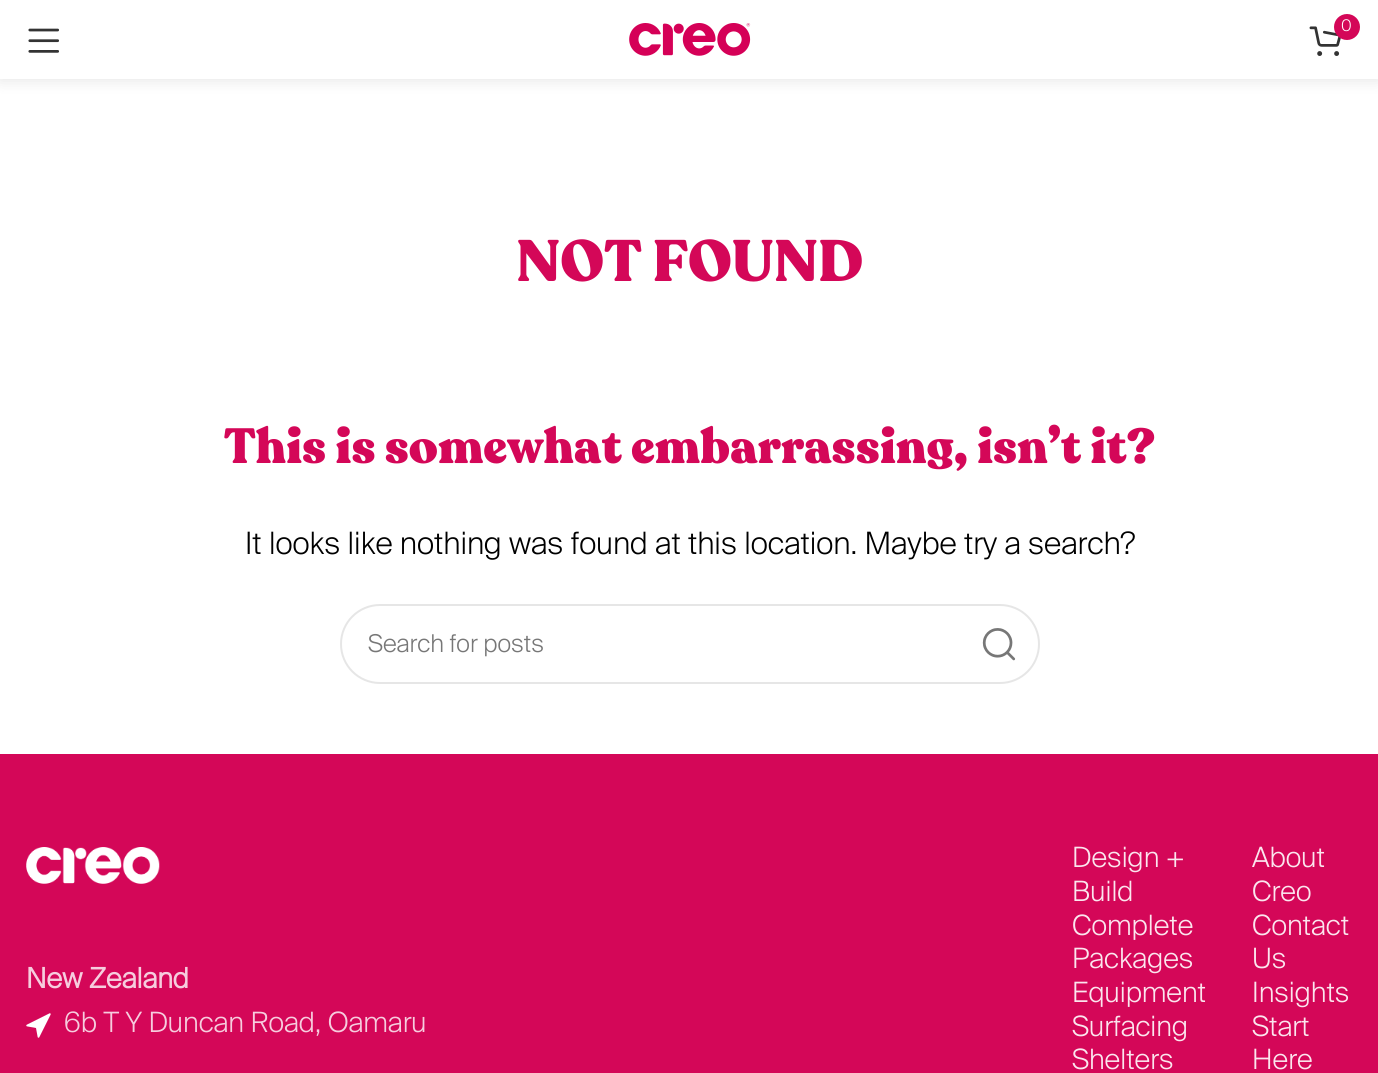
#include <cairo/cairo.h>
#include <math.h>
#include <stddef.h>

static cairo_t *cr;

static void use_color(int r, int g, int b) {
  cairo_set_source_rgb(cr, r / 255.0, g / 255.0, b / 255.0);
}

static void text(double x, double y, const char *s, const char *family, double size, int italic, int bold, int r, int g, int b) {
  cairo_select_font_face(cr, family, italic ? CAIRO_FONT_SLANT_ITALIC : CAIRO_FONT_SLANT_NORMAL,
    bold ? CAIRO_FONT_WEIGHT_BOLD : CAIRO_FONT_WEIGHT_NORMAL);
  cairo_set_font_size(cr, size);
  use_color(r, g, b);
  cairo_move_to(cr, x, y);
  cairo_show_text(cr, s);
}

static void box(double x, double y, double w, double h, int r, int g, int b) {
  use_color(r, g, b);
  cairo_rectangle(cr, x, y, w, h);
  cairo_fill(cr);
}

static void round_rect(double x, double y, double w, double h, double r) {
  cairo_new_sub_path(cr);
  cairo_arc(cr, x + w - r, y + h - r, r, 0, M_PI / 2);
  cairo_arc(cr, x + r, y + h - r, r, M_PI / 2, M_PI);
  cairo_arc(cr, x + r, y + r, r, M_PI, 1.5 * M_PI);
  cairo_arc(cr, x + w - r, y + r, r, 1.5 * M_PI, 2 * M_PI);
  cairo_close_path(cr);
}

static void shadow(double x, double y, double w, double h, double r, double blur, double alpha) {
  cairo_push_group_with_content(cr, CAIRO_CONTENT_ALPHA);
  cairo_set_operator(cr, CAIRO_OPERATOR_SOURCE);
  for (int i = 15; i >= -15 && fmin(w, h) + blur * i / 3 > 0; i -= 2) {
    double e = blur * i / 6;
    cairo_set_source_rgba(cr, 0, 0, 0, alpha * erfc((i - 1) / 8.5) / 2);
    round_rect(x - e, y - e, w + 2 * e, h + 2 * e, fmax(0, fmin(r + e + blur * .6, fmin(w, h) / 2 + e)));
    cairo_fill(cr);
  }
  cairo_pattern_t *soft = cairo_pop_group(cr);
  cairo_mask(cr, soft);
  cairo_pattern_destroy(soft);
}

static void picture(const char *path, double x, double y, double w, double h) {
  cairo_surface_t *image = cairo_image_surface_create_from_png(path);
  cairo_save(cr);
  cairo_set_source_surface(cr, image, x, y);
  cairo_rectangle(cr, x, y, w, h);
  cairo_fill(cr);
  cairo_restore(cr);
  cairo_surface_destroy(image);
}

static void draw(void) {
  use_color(255, 255, 255);
  cairo_paint(cr);
  use_color(0, 0, 0);
  shadow(0, 2, 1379, 79, 0, 7, 0.1);
  box(0, 0, 1378, 79, 255, 255, 255);
  picture("img_01.png", 28, 28, 31, 25);
  picture("img_02.png", 629, 23, 122, 33);
  picture("img_03.png", 1309, 26, 32, 30);
  use_color(212, 7, 88);
  cairo_arc(cr, 1347, 27, 13, 0, 2 * M_PI);
  cairo_fill(cr);
  round_rect(341, 605, 698, 78, 39);
  use_color(230, 230, 230);
  cairo_stroke(cr);
  picture("img_04.png", 982, 628, 34, 33);
  box(0, 754, 1378, 319, 212, 7, 88);
  picture("img_05.png", 26, 847, 134, 37);
  picture("img_06.png", 26, 1013, 25, 25);
  text(1341, 31, "0", "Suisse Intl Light", 16, 0, 0, 255, 255, 255);
  text(516, 281, "NOT FOUND", "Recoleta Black", 58, 0, 0, 212, 7, 88);
  text(224, 463, "This is somewhat embarrassing, isn’t it?", "Recoleta Black", 49, 0, 0, 212, 7, 88);
  text(245, 554, "It looks like nothing was found at this location. Maybe try a search?", "Suisse Intl Light", 30.8, 0, 0, 0, 0, 0);
  text(368, 652, "Search for posts", "Suisse Intl Light", 24.5, 0, 0, 119, 119, 119);
  text(26, 988, "New Zealand", "Suisse Intl", 28, 0, 1, 246, 205, 222);
  text(64, 1032, "6b T Y Duncan Road, Oamaru", "Suisse Intl Light", 28, 0, 0, 246, 205, 222);
  text(1072, 867, "Design +", "Suisse Intl Light", 28, 0, 0, 251, 230, 238);
  text(1072, 901, "Build", "Suisse Intl Light", 28, 0, 0, 251, 230, 238);
  text(1072, 935, "Complete", "Suisse Intl Light", 28, 0, 0, 251, 230, 238);
  text(1072, 968, "Packages", "Suisse Intl Light", 28, 0, 0, 251, 230, 238);
  text(1072, 1002, "Equipment", "Suisse Intl Light", 28, 0, 0, 251, 230, 238);
  text(1072, 1036, "Surfacing", "Suisse Intl Light", 28, 0, 0, 251, 230, 238);
  text(1072, 1069, "Shelters", "Suisse Intl Light", 28, 0, 0, 251, 230, 238);
  text(1252, 867, "About", "Suisse Intl Light", 28, 0, 0, 251, 230, 238);
  text(1252, 901, "Creo", "Suisse Intl Light", 28, 0, 0, 251, 230, 238);
  text(1252, 935, "Contact", "Suisse Intl Light", 28, 0, 0, 251, 230, 238);
  text(1252, 968, "Us", "Suisse Intl Light", 28, 0, 0, 251, 230, 238);
  text(1252, 1002, "Insights", "Suisse Intl Light", 28, 0, 0, 251, 230, 238);
  text(1252, 1036, "Start", "Suisse Intl Light", 28, 0, 0, 251, 230, 238);
  text(1252, 1069, "Here", "Suisse Intl Light", 28, 0, 0, 251, 230, 238);
}

int main(void) {
  cairo_surface_t *surface = cairo_image_surface_create(CAIRO_FORMAT_RGB24, 1378, 1073);
  cr = cairo_create(surface);
  cairo_font_options_t *options = cairo_font_options_create();
  cairo_font_options_set_hint_metrics(options, CAIRO_HINT_METRICS_OFF);
  cairo_font_options_set_hint_style(options, CAIRO_HINT_STYLE_NONE);
  cairo_set_font_options(cr, options);
  cairo_set_miter_limit(cr, 4);
  draw();
  cairo_surface_write_to_png(surface, "out.png");
  cairo_font_options_destroy(options);
  cairo_destroy(cr);
  cairo_surface_destroy(surface);
  return 0;
}
